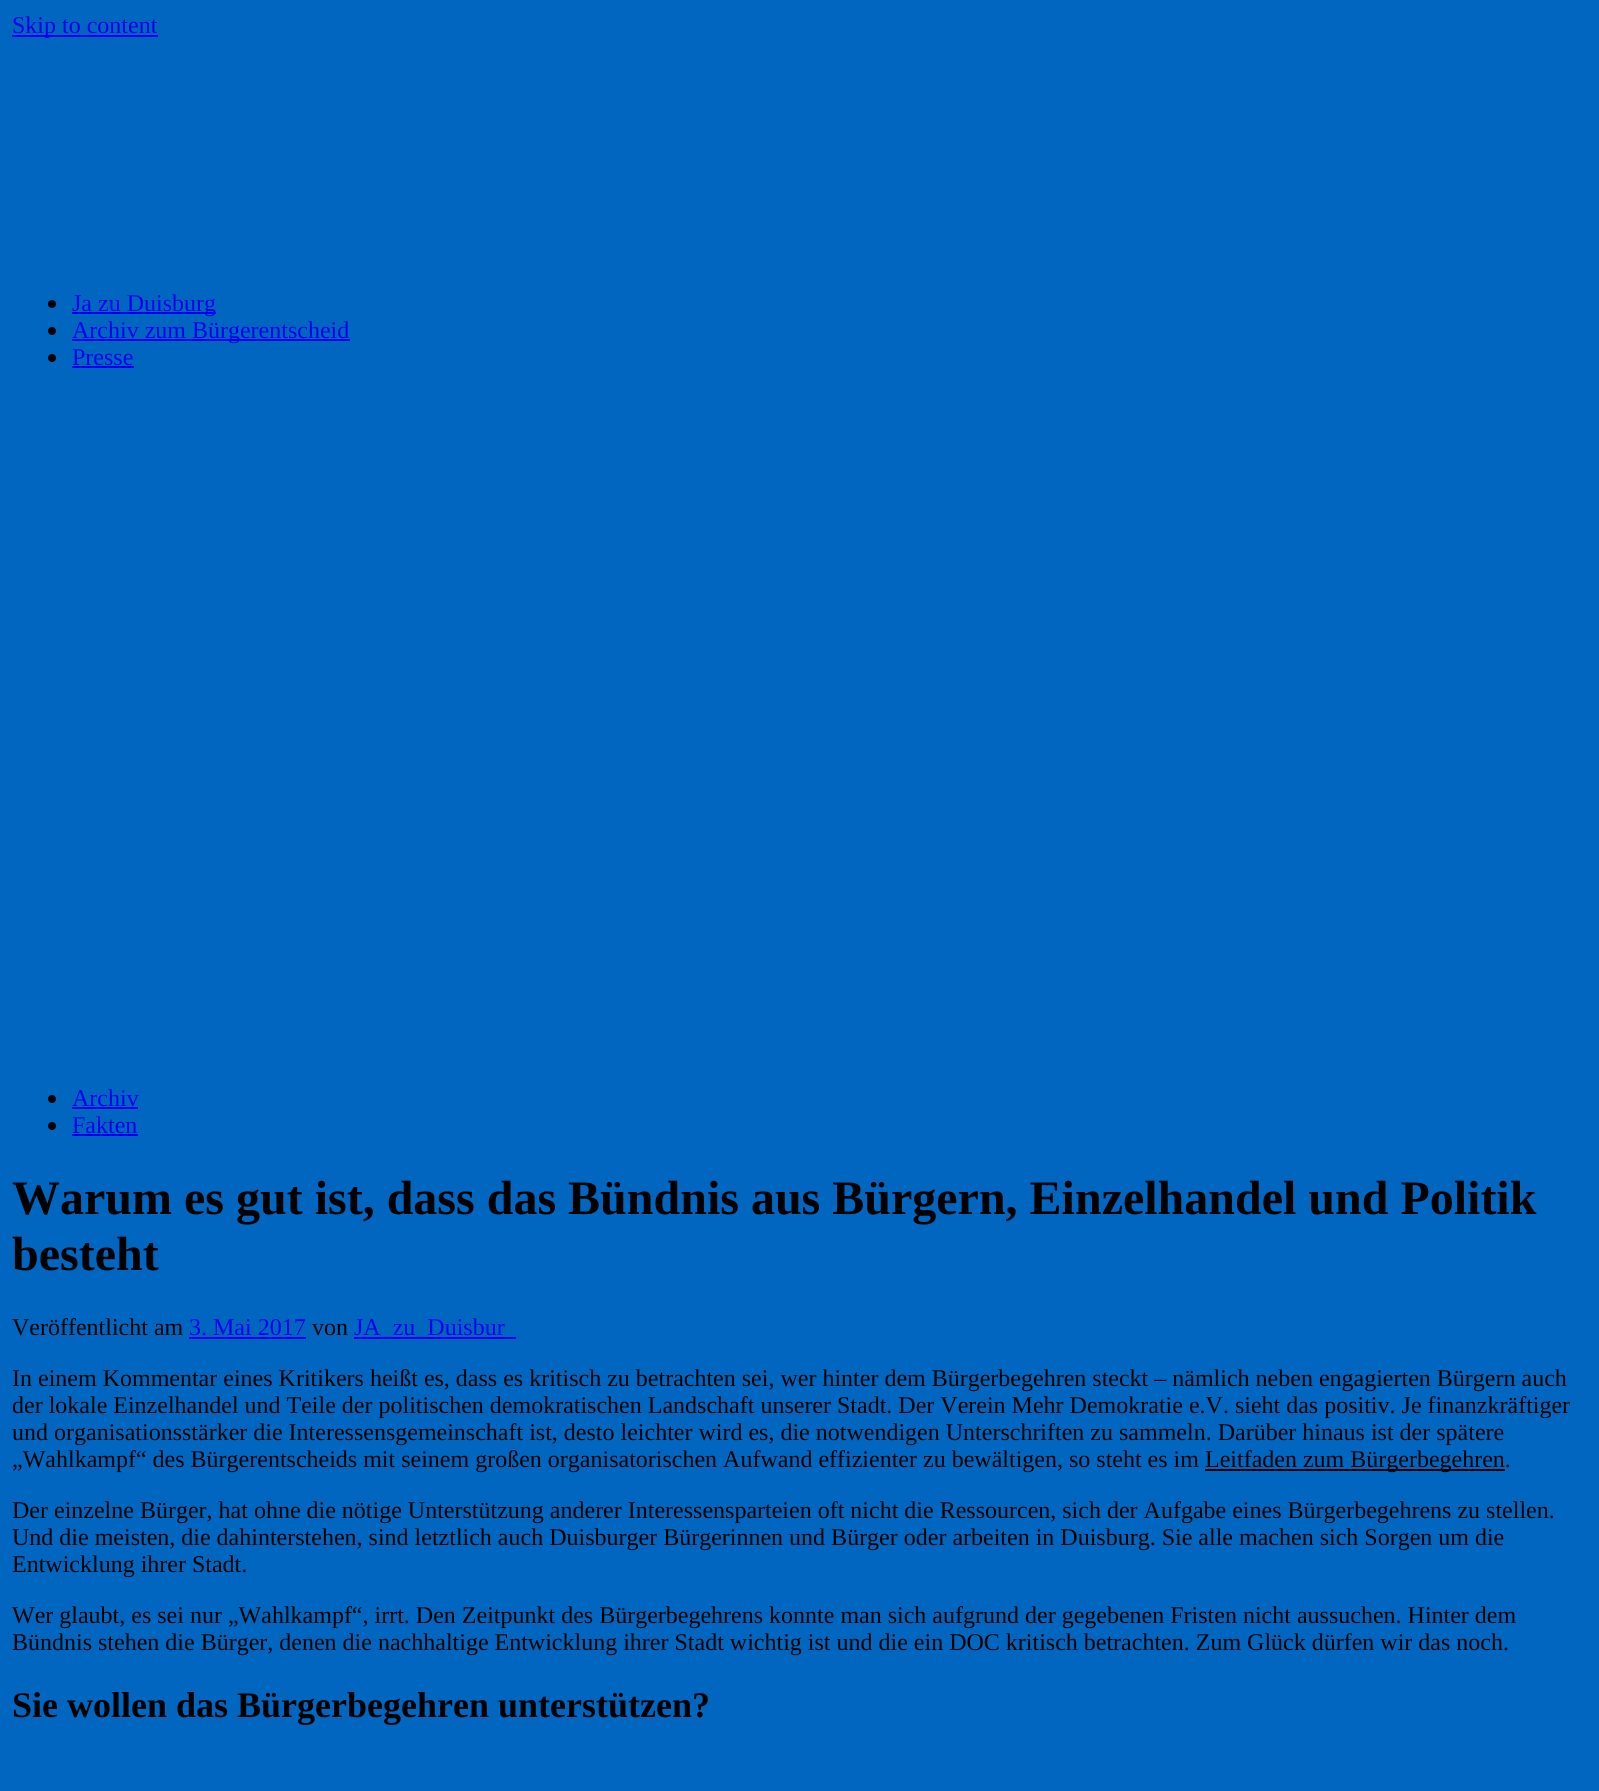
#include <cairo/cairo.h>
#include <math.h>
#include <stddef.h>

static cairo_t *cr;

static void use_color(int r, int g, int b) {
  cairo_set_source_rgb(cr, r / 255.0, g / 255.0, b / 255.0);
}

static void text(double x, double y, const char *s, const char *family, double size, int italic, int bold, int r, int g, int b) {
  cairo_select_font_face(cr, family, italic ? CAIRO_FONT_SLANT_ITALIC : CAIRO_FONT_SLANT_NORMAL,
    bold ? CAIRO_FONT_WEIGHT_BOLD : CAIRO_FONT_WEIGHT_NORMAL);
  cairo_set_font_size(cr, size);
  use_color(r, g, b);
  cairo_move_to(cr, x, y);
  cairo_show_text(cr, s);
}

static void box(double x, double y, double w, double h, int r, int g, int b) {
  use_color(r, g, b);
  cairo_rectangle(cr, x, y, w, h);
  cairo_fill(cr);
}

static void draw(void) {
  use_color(0, 102, 191);
  cairo_paint(cr);
  box(12, 35, 146, 2, 0, 0, 238);
  use_color(0, 0, 0);
  cairo_arc(cr, 52, 304, 4, 0, 2 * M_PI);
  cairo_fill(cr);
  box(72, 312, 144, 2, 0, 0, 238);
  use_color(0, 0, 0);
  cairo_arc(cr, 52, 331, 4, 0, 2 * M_PI);
  cairo_fill(cr);
  box(72, 339, 278, 2, 0, 0, 238);
  use_color(0, 0, 0);
  cairo_arc(cr, 52, 358, 4, 0, 2 * M_PI);
  cairo_fill(cr);
  box(72, 366, 62, 2, 0, 0, 238);
  use_color(0, 0, 0);
  cairo_arc(cr, 52, 1099, 4, 0, 2 * M_PI);
  cairo_fill(cr);
  box(72, 1107, 66, 2, 0, 0, 238);
  use_color(0, 0, 0);
  cairo_arc(cr, 52, 1126, 4, 0, 2 * M_PI);
  cairo_fill(cr);
  box(72, 1134, 66, 2, 0, 0, 238);
  box(189, 1337, 117, 2, 0, 0, 238);
  box(354, 1337, 162, 2, 0, 0, 238);
  box(1205, 1469, 300, 2, 0, 0, 0);
  text(12, 33, "Skip to content", "Liberation Serif", 24, 0, 0, 0, 0, 238);
  text(72, 311, "Ja zu Duisburg", "Liberation Serif", 24, 0, 0, 0, 0, 238);
  text(72, 338, "Archiv zum Bürgerentscheid", "Liberation Serif", 24, 0, 0, 0, 0, 238);
  text(72, 365, "Presse", "Liberation Serif", 24, 0, 0, 0, 0, 238);
  text(72, 1106, "Archiv", "Liberation Serif", 24, 0, 0, 0, 0, 238);
  text(72, 1133, "Fakten", "Liberation Serif", 24, 0, 0, 0, 0, 238);
  text(12, 1214, "Warum es gut ist, dass das Bündnis aus Bürgern, Einzelhandel und Politik", "Liberation Serif", 48, 0, 1, 0, 0, 0);
  text(12, 1270, "besteht", "Liberation Serif", 48, 0, 1, 0, 0, 0);
  text(12, 1335, "Veröffentlicht am", "Liberation Serif", 24, 0, 0, 0, 0, 0);
  text(189, 1335, "3. Mai 2017", "Liberation Serif", 24, 0, 0, 0, 0, 238);
  text(312, 1335, "von", "Liberation Serif", 24, 0, 0, 0, 0, 0);
  text(354, 1335, "JA_zu_Duisbur", "Liberation Serif", 24, 0, 0, 0, 0, 238);
  text(12, 1386, "In einem Kommentar eines Kritikers heißt es, dass es kritisch zu betrachten sei, wer hinter dem Bürgerbegehren steckt – nämlich neben engagierten Bürgern auch", "Liberation Serif", 24, 0, 0, 0, 0, 0);
  text(12, 1413, "der lokale Einzelhandel und Teile der politischen demokratischen Landschaft unserer Stadt. Der Verein Mehr Demokratie e.V. sieht das positiv. Je finanzkräftiger", "Liberation Serif", 24, 0, 0, 0, 0, 0);
  text(12, 1440, "und organisationsstärker die Interessensgemeinschaft ist, desto leichter wird es, die notwendigen Unterschriften zu sammeln. Darüber hinaus ist der spätere", "Liberation Serif", 24, 0, 0, 0, 0, 0);
  text(12, 1467, "„Wahlkampf“ des Bürgerentscheids mit seinem großen organisatorischen Aufwand effizienter zu bewältigen, so steht es im", "Liberation Serif", 24, 0, 0, 0, 0, 0);
  text(1205, 1467, "Leitfaden zum Bürgerbegehren.", "Liberation Serif", 24, 0, 0, 0, 0, 0);
  text(12, 1518, "Der einzelne Bürger, hat ohne die nötige Unterstützung anderer Interessensparteien oft nicht die Ressourcen, sich der Aufgabe eines Bürgerbegehrens zu stellen.", "Liberation Serif", 24, 0, 0, 0, 0, 0);
  text(12, 1545, "Und die meisten, die dahinterstehen, sind letztlich auch Duisburger Bürgerinnen und Bürger oder arbeiten in Duisburg. Sie alle machen sich Sorgen um die", "Liberation Serif", 24, 0, 0, 0, 0, 0);
  text(12, 1572, "Entwicklung ihrer Stadt.", "Liberation Serif", 24, 0, 0, 0, 0, 0);
  text(12, 1623, "Wer glaubt, es sei nur „Wahlkampf“, irrt. Den Zeitpunkt des Bürgerbegehrens konnte man sich aufgrund der gegebenen Fristen nicht aussuchen. Hinter dem", "Liberation Serif", 24, 0, 0, 0, 0, 0);
  text(12, 1650, "Bündnis stehen die Bürger, denen die nachhaltige Entwicklung ihrer Stadt wichtig ist und die ein DOC kritisch betrachten. Zum Glück dürfen wir das noch.", "Liberation Serif", 24, 0, 0, 0, 0, 0);
  text(12, 1717, "Sie wollen das Bürgerbegehren unterstützen?", "Liberation Serif", 36, 0, 1, 0, 0, 0);
}

int main(void) {
  cairo_surface_t *surface = cairo_image_surface_create(CAIRO_FORMAT_RGB24, 1599, 1791);
  cr = cairo_create(surface);
  cairo_font_options_t *options = cairo_font_options_create();
  cairo_font_options_set_hint_metrics(options, CAIRO_HINT_METRICS_OFF);
  cairo_font_options_set_hint_style(options, CAIRO_HINT_STYLE_NONE);
  cairo_set_font_options(cr, options);
  cairo_set_miter_limit(cr, 4);
  draw();
  cairo_surface_write_to_png(surface, "out.png");
  cairo_font_options_destroy(options);
  cairo_destroy(cr);
  cairo_surface_destroy(surface);
  return 0;
}
